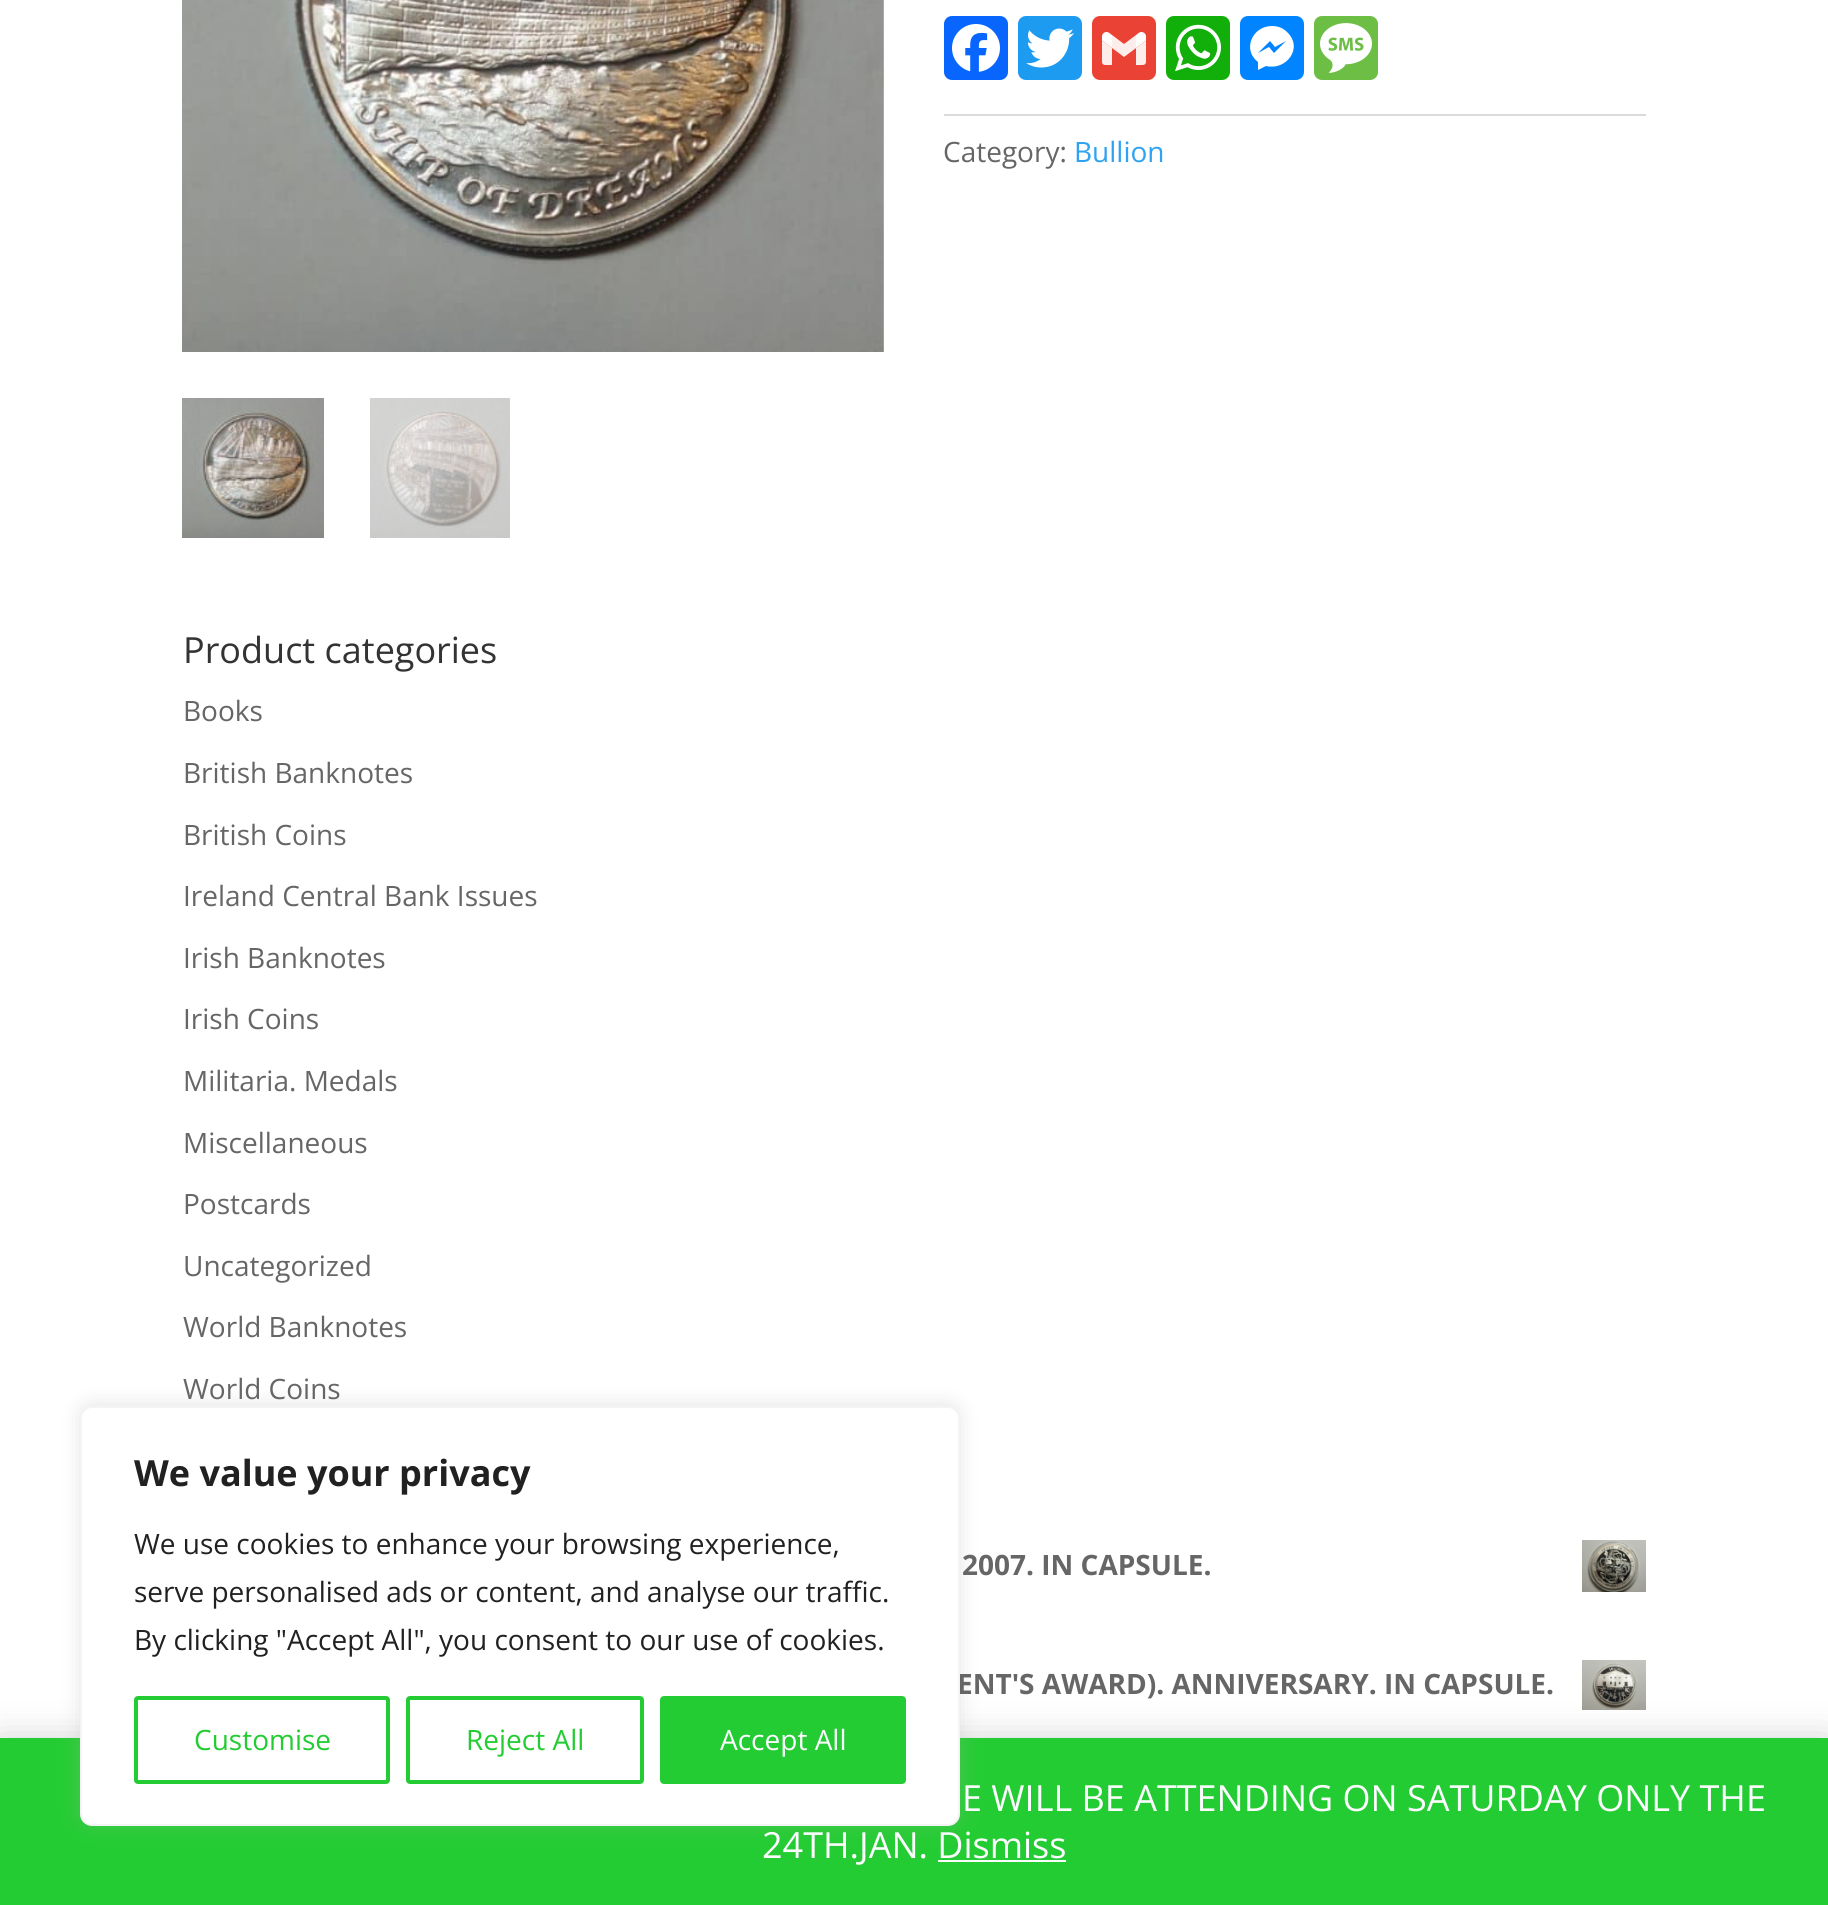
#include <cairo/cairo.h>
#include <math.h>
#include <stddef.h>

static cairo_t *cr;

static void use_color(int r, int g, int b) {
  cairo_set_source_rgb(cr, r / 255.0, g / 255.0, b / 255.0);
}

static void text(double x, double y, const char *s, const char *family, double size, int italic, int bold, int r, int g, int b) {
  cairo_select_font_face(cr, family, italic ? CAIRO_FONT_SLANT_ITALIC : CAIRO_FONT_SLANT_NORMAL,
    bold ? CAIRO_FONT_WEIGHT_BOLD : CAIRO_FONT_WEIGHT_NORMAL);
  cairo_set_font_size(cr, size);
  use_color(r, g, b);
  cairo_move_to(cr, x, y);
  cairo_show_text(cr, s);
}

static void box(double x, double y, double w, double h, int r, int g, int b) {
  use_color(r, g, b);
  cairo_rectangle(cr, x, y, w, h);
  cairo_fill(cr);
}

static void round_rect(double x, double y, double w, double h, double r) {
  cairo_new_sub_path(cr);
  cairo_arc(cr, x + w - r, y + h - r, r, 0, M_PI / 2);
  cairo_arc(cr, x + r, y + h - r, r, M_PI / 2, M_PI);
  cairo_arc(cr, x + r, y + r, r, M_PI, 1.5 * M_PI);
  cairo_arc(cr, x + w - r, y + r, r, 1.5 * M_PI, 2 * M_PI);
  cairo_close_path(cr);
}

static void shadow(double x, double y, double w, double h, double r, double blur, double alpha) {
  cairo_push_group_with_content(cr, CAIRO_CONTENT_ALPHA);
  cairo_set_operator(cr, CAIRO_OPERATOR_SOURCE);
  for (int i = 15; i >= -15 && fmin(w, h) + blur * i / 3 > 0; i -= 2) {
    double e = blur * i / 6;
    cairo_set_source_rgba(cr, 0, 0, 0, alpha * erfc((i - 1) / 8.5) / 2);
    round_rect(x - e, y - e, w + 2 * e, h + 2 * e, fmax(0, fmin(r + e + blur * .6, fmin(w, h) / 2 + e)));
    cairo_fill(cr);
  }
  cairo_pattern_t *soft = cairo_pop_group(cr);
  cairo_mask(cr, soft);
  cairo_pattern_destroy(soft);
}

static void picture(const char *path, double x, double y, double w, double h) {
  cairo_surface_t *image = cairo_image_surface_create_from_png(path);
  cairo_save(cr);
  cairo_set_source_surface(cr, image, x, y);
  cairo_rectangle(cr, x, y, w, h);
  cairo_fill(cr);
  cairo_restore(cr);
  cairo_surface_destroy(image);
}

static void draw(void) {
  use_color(255, 255, 255);
  cairo_paint(cr);
  picture("img_01.png", 182, 0, 702, 352);
  picture("img_02.png", 182, 398, 142, 140);
  picture("img_03.png", 370, 398, 140, 140);
  use_color(8, 102, 255);
  round_rect(944, 16, 64, 64, 8);
  cairo_fill(cr);
  picture("img_04.png", 952, 24, 48, 48);
  use_color(29, 155, 240);
  round_rect(1018, 16, 64, 64, 8);
  cairo_fill(cr);
  picture("img_05.png", 1026, 28, 48, 40);
  use_color(234, 67, 53);
  round_rect(1092, 16, 64, 64, 8);
  cairo_fill(cr);
  picture("img_06.png", 1102, 32, 44, 33);
  use_color(18, 175, 10);
  round_rect(1166, 16, 64, 64, 8);
  cairo_fill(cr);
  picture("img_07.png", 1175, 24, 46, 48);
  use_color(0, 132, 255);
  round_rect(1240, 16, 64, 64, 8);
  cairo_fill(cr);
  use_color(255, 255, 255);
  cairo_new_path(cr);
  cairo_move_to(cr, 1272, 26);
  cairo_curve_to(cr, 1252, 26, 1242, 50, 1258, 62);
  cairo_line_to(cr, 1258, 70);
  cairo_line_to(cr, 1266, 66);
  cairo_curve_to(cr, 1286, 71, 1304, 48, 1287, 32);
  cairo_curve_to(cr, 1283, 28, 1278, 26, 1272, 26);
  cairo_move_to(cr, 1274, 53);
  cairo_line_to(cr, 1269, 47);
  cairo_line_to(cr, 1258, 53);
  cairo_line_to(cr, 1270, 41);
  cairo_line_to(cr, 1275, 47);
  cairo_line_to(cr, 1286, 41);
  cairo_close_path(cr);
  cairo_fill(cr);
  use_color(108, 190, 69);
  round_rect(1314, 16, 64, 64, 8);
  cairo_fill(cr);
  picture("img_08.png", 1320, 23, 52, 50);
  box(944, 114, 702, 2, 218, 218, 218);
  picture("img_09.png", 1582, 1540, 64, 52);
  picture("img_10.png", 1582, 1660, 64, 50);
  use_color(0, 0, 0);
  shadow(0, 1740, 1828, 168, 0, 18, 0.2);
  box(0, 1738, 1828, 167, 36, 204, 51);
  use_color(172, 171, 171);
  shadow(80, 1404, 880, 420, 12, 10, 0.3);
  box(938, 1860, 128, 2, 252, 251, 254);
  text(943, 162, "Category:", "Open Sans", 28, 0, 0, 102, 102, 102);
  text(1074, 162, "Bullion", "Open Sans", 28, 0, 0, 46, 163, 242);
  text(183, 663, "Product categories", "Open Sans", 36, 0, 0, 51, 51, 51);
  text(183, 721, "Books", "Open Sans", 28, 0, 0, 102, 102, 102);
  text(183, 783, "British Banknotes", "Open Sans", 28, 0, 0, 102, 102, 102);
  text(183, 845, "British Coins", "Open Sans", 28, 0, 0, 102, 102, 102);
  text(183, 906, "Ireland Central Bank Issues", "Open Sans", 28, 0, 0, 102, 102, 102);
  text(183, 968, "Irish Banknotes", "Open Sans", 28, 0, 0, 102, 102, 102);
  text(183, 1029, "Irish Coins", "Open Sans", 28, 0, 0, 102, 102, 102);
  text(183, 1091, "Militaria. Medals", "Open Sans", 28, 0, 0, 102, 102, 102);
  text(183, 1153, "Miscellaneous", "Open Sans", 28, 0, 0, 102, 102, 102);
  text(183, 1214, "Postcards", "Open Sans", 28, 0, 0, 102, 102, 102);
  text(183, 1276, "Uncategorized", "Open Sans", 28, 0, 0, 102, 102, 102);
  text(183, 1337, "World Banknotes", "Open Sans", 28, 0, 0, 102, 102, 102);
  text(183, 1399, "World Coins", "Open Sans", 28, 0, 0, 102, 102, 102);
  text(962, 1575, "2007. IN CAPSULE.", "Open Sans", 28, 0, 1, 102, 102, 102);
  text(957, 1694, "ENT'S AWARD). ANNIVERSARY. IN CAPSULE.", "Open Sans", 28, 0, 1, 102, 102, 102);
  use_color(255, 255, 255);
  round_rect(81, 1407, 878, 418, 11);
  cairo_fill_preserve(cr);
  use_color(244, 244, 244);
  cairo_stroke(cr);
  text(134, 1486, "We value your privacy", "Open Sans", 36, 0, 1, 33, 33, 33);
  text(134, 1554, "We use cookies to enhance your browsing experience,", "Open Sans", 28, 0, 0, 33, 33, 33);
  text(134, 1602, "serve personalised ads or content, and analyse our traffic.", "Open Sans", 28, 0, 0, 33, 33, 33);
  text(134, 1650, "By clicking \"Accept All\", you consent to our use of cookies.", "Open Sans", 28, 0, 0, 33, 33, 33);
  round_rect(136, 1698, 252, 84, 2);
  use_color(35, 204, 51);
  cairo_set_line_width(cr, 4);
  cairo_stroke(cr);
  text(194, 1750, "Customise", "Open Sans", 28, 0, 0, 35, 204, 51);
  round_rect(408, 1698, 234, 84, 2);
  cairo_stroke(cr);
  text(466, 1750, "Reject All", "Open Sans", 28, 0, 0, 35, 204, 51);
  round_rect(662, 1698, 242, 84, 2);
  cairo_fill_preserve(cr);
  cairo_stroke(cr);
  text(720, 1750, "Accept All", "Open Sans", 28, 0, 0, 252, 251, 254);
  text(962, 1811, "E WILL BE ATTENDING ON SATURDAY ONLY THE", "Open Sans", 36, 0, 0, 252, 251, 254);
  text(762, 1858, "24TH.JAN. Dismiss", "Open Sans", 36, 0, 0, 252, 251, 254);
}

int main(void) {
  cairo_surface_t *surface = cairo_image_surface_create(CAIRO_FORMAT_RGB24, 1828, 1905);
  cr = cairo_create(surface);
  cairo_font_options_t *options = cairo_font_options_create();
  cairo_font_options_set_hint_metrics(options, CAIRO_HINT_METRICS_OFF);
  cairo_font_options_set_hint_style(options, CAIRO_HINT_STYLE_NONE);
  cairo_set_font_options(cr, options);
  cairo_set_miter_limit(cr, 4);
  draw();
  cairo_surface_write_to_png(surface, "out.png");
  cairo_font_options_destroy(options);
  cairo_destroy(cr);
  cairo_surface_destroy(surface);
  return 0;
}
